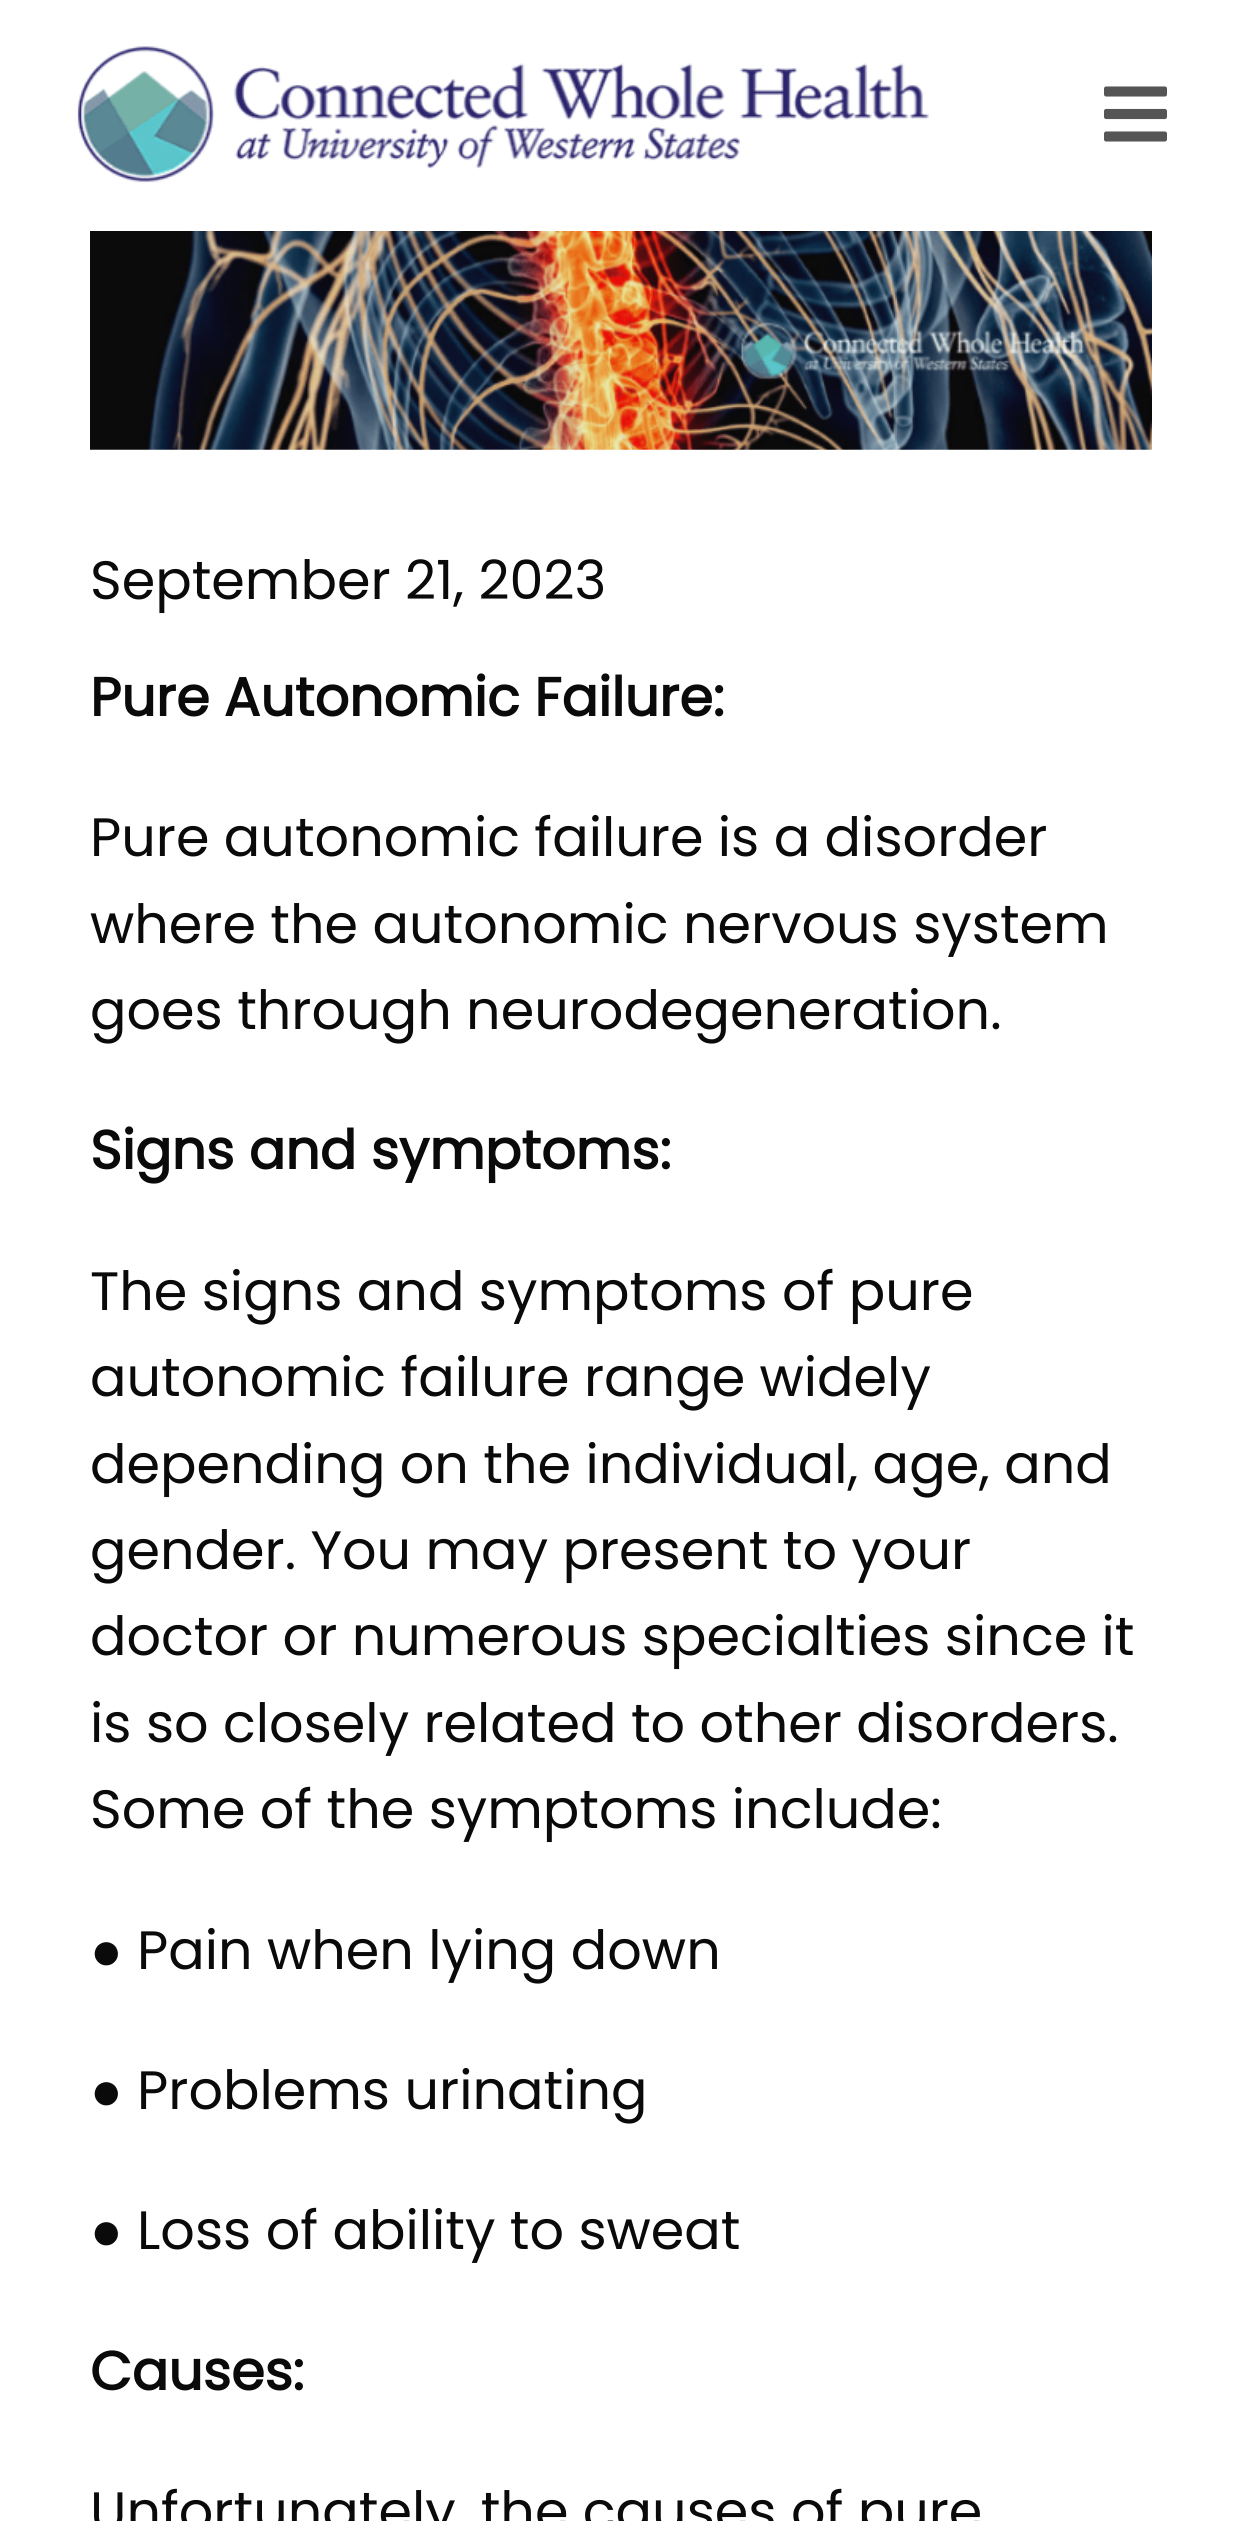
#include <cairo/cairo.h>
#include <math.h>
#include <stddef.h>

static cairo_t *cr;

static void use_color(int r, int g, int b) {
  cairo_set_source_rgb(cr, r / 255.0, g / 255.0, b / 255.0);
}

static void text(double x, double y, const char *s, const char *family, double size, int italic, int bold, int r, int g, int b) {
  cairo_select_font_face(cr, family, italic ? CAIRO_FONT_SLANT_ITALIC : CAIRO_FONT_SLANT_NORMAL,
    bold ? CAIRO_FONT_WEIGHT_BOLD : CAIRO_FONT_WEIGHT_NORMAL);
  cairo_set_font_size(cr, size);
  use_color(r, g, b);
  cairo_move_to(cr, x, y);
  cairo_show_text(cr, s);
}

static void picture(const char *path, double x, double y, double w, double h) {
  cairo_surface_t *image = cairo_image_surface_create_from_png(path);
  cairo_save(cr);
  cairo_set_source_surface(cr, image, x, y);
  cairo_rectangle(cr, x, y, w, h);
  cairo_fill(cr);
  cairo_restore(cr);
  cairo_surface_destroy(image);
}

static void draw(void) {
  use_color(255, 255, 255);
  cairo_paint(cr);
  picture("img_01.png", 77, 46, 852, 137);
  picture("img_02.png", 1104, 86, 63, 56);
  picture("img_03.png", 90, 231, 1062, 219);
  text(90, 599, "September 21, 2023", "Poppins", 54, 0, 0, 10, 10, 10);
  text(90, 716, "Pure Autonomic Failure:", "Poppins", 54, 0, 1, 10, 10, 10);
  text(90, 856, "Pure autonomic failure is a disorder", "Poppins", 54, 0, 0, 10, 10, 10);
  text(90, 943, "where the autonomic nervous system", "Poppins", 54, 0, 0, 10, 10, 10);
  text(90, 1029, "goes through neurodegeneration.", "Poppins", 54, 0, 0, 10, 10, 10);
  text(90, 1169, "Signs and symptoms:", "Poppins", 54, 0, 1, 10, 10, 10);
  text(90, 1310, "The signs and symptoms of pure", "Poppins", 54, 0, 0, 10, 10, 10);
  text(90, 1396, "autonomic failure range widely", "Poppins", 54, 0, 0, 10, 10, 10);
  text(90, 1483, "depending on the individual, age, and", "Poppins", 54, 0, 0, 10, 10, 10);
  text(90, 1569, "gender. You may present to your", "Poppins", 54, 0, 0, 10, 10, 10);
  text(90, 1655, "doctor or numerous specialties since it", "Poppins", 54, 0, 0, 10, 10, 10);
  text(90, 1742, "is so closely related to other disorders.", "Poppins", 54, 0, 0, 10, 10, 10);
  text(90, 1828, "Some of the symptoms include:", "Poppins", 54, 0, 0, 10, 10, 10);
  text(90, 1969, "●", "Liberation Sans", 54, 0, 0, 10, 10, 10);
  text(137, 1969, "Pain when lying down", "Poppins", 54, 0, 0, 10, 10, 10);
  text(90, 2109, "●", "Liberation Sans", 54, 0, 0, 10, 10, 10);
  text(137, 2109, "Problems urinating", "Poppins", 54, 0, 0, 10, 10, 10);
  text(90, 2249, "●", "Liberation Sans", 54, 0, 0, 10, 10, 10);
  text(137, 2249, "Loss of ability to sweat", "Poppins", 54, 0, 0, 10, 10, 10);
  text(90, 2390, "Causes:", "Poppins", 54, 0, 1, 10, 10, 10);
  text(90, 2530, "Unfortunately, the causes of pure", "Poppins", 54, 0, 0, 10, 10, 10);
}

int main(void) {
  cairo_surface_t *surface = cairo_image_surface_create(CAIRO_FORMAT_RGB24, 1242, 2521);
  cr = cairo_create(surface);
  cairo_font_options_t *options = cairo_font_options_create();
  cairo_font_options_set_hint_metrics(options, CAIRO_HINT_METRICS_OFF);
  cairo_font_options_set_hint_style(options, CAIRO_HINT_STYLE_NONE);
  cairo_set_font_options(cr, options);
  cairo_set_miter_limit(cr, 4);
  draw();
  cairo_surface_write_to_png(surface, "out.png");
  cairo_font_options_destroy(options);
  cairo_destroy(cr);
  cairo_surface_destroy(surface);
  return 0;
}
